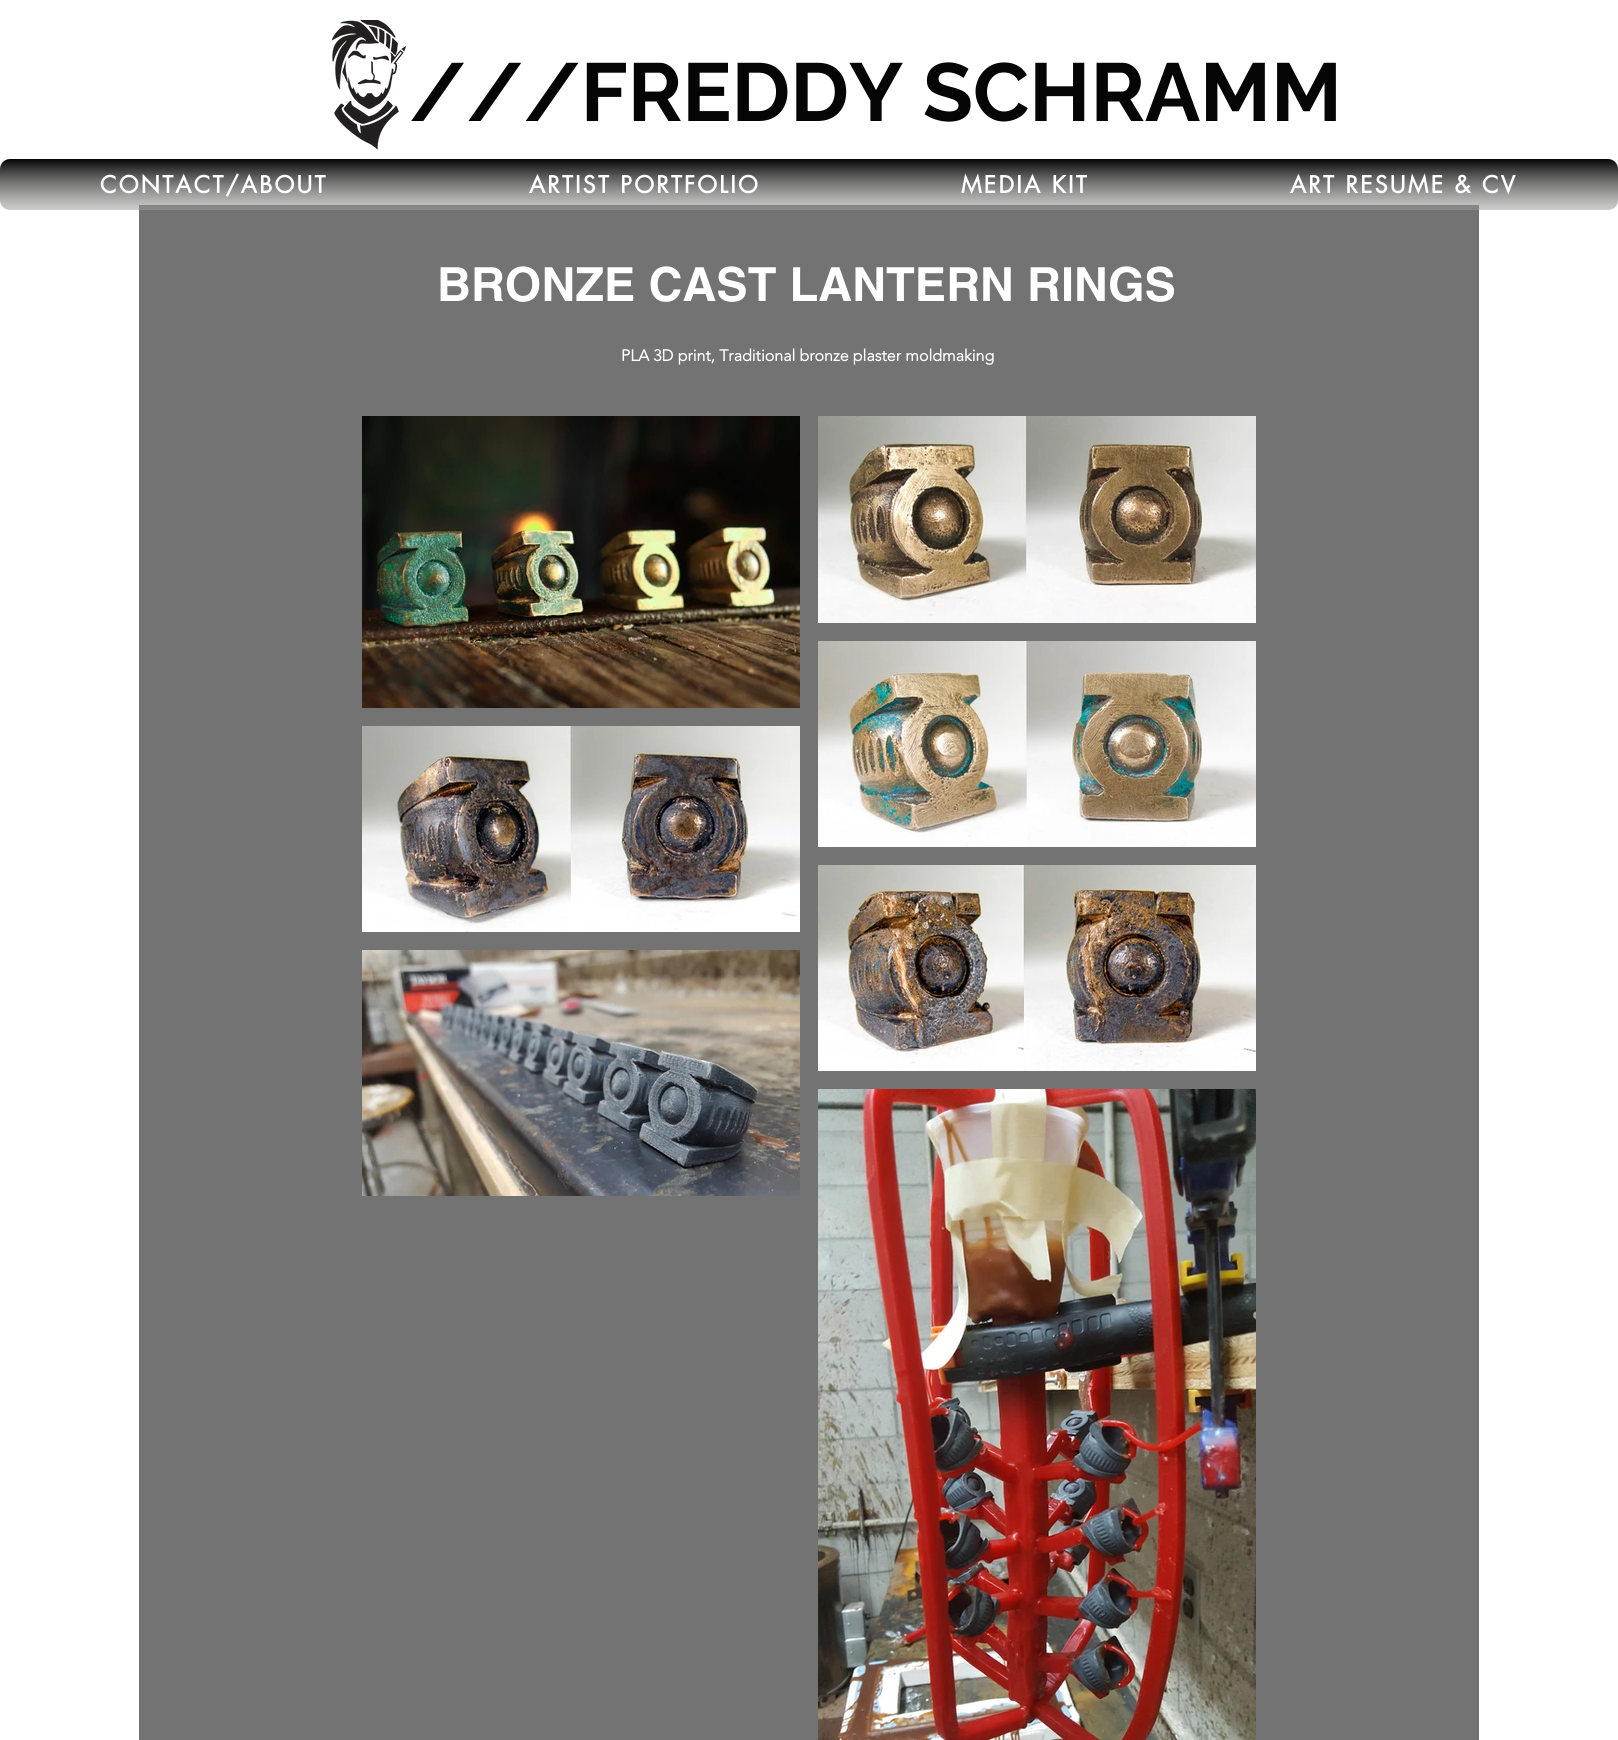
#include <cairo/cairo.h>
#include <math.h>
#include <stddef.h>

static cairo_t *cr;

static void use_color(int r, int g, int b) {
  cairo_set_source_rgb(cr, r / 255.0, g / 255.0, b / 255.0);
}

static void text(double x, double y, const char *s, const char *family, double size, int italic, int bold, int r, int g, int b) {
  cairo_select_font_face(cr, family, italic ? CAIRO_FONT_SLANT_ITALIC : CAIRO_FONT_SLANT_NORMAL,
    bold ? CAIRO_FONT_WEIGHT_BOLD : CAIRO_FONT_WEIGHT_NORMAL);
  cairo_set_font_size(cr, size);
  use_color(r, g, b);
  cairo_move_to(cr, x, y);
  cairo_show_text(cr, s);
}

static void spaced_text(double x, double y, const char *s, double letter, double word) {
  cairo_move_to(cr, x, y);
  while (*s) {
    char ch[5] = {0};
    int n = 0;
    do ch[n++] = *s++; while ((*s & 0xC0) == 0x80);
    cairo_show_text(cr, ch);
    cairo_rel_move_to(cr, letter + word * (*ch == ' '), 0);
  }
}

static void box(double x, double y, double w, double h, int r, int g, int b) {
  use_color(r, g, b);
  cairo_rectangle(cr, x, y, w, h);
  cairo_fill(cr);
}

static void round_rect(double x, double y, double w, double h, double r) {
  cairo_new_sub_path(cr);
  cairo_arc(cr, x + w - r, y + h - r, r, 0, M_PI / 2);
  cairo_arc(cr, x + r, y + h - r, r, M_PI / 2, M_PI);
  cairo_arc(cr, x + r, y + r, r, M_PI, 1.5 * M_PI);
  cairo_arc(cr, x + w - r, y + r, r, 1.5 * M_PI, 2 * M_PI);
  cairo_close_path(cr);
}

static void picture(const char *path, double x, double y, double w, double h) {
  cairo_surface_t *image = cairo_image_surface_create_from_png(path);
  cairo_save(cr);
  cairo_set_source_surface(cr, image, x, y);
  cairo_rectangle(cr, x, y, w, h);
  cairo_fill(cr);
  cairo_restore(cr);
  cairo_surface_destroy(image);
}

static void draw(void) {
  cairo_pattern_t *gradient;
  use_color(255, 255, 255);
  cairo_paint(cr);
  picture("img_01.png", 331, 20, 76, 130);
  box(139, 205, 1340, 1535, 115, 115, 115);
  gradient = cairo_pattern_create_linear(809, 210, 809, 159);
  cairo_pattern_add_color_stop_rgba(gradient, 0, 0.627, 0.627, 0.624, 0.53);
  cairo_pattern_add_color_stop_rgba(gradient, 1, 0.02, 0.02, 0.02, 1);
  cairo_set_source(cr, gradient);
  cairo_pattern_destroy(gradient);
  round_rect(0, 159, 1618, 51, 10);
  cairo_fill(cr);
  picture("img_02.png", 362, 416, 438, 292);
  picture("img_03.png", 818, 416, 438, 207);
  picture("img_04.png", 362, 726, 438, 206);
  picture("img_05.png", 818, 641, 438, 206);
  picture("img_06.png", 362, 950, 438, 246);
  picture("img_07.png", 818, 865, 438, 206);
  picture("img_08.png", 818, 1089, 438, 651);
  text(409, 121, "///FREDDY SCHRAMM", "Raleway", 82, 0, 1, 5, 5, 5);
  cairo_select_font_face(cr, "futura", CAIRO_FONT_SLANT_NORMAL, CAIRO_FONT_WEIGHT_BOLD);
  cairo_set_font_size(cr, 23);
  use_color(255, 255, 255);
  spaced_text(100, 193, "CONTACT/ABOUT", 2.25, 0);
  spaced_text(529, 193, "ARTIST PORTFOLIO", 2.25, 0);
  spaced_text(961, 193, "MEDIA KIT", 2.25, 0);
  spaced_text(1290, 193, "ART RESUME & CV", 2.25, 0);
  text(437, 301, "BRONZE CAST LANTERN RINGS", "helvetica", 47, 0, 1, 255, 255, 255);
  text(621, 361, "PLA 3D print, Traditional bronze plaster moldmaking", "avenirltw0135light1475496", 16, 0, 1, 255, 255, 255);
}

int main(void) {
  cairo_surface_t *surface = cairo_image_surface_create(CAIRO_FORMAT_RGB24, 1618, 1740);
  cr = cairo_create(surface);
  cairo_font_options_t *options = cairo_font_options_create();
  cairo_font_options_set_hint_metrics(options, CAIRO_HINT_METRICS_OFF);
  cairo_font_options_set_hint_style(options, CAIRO_HINT_STYLE_NONE);
  cairo_set_font_options(cr, options);
  cairo_set_miter_limit(cr, 4);
  draw();
  cairo_surface_write_to_png(surface, "out.png");
  cairo_font_options_destroy(options);
  cairo_destroy(cr);
  cairo_surface_destroy(surface);
  return 0;
}
